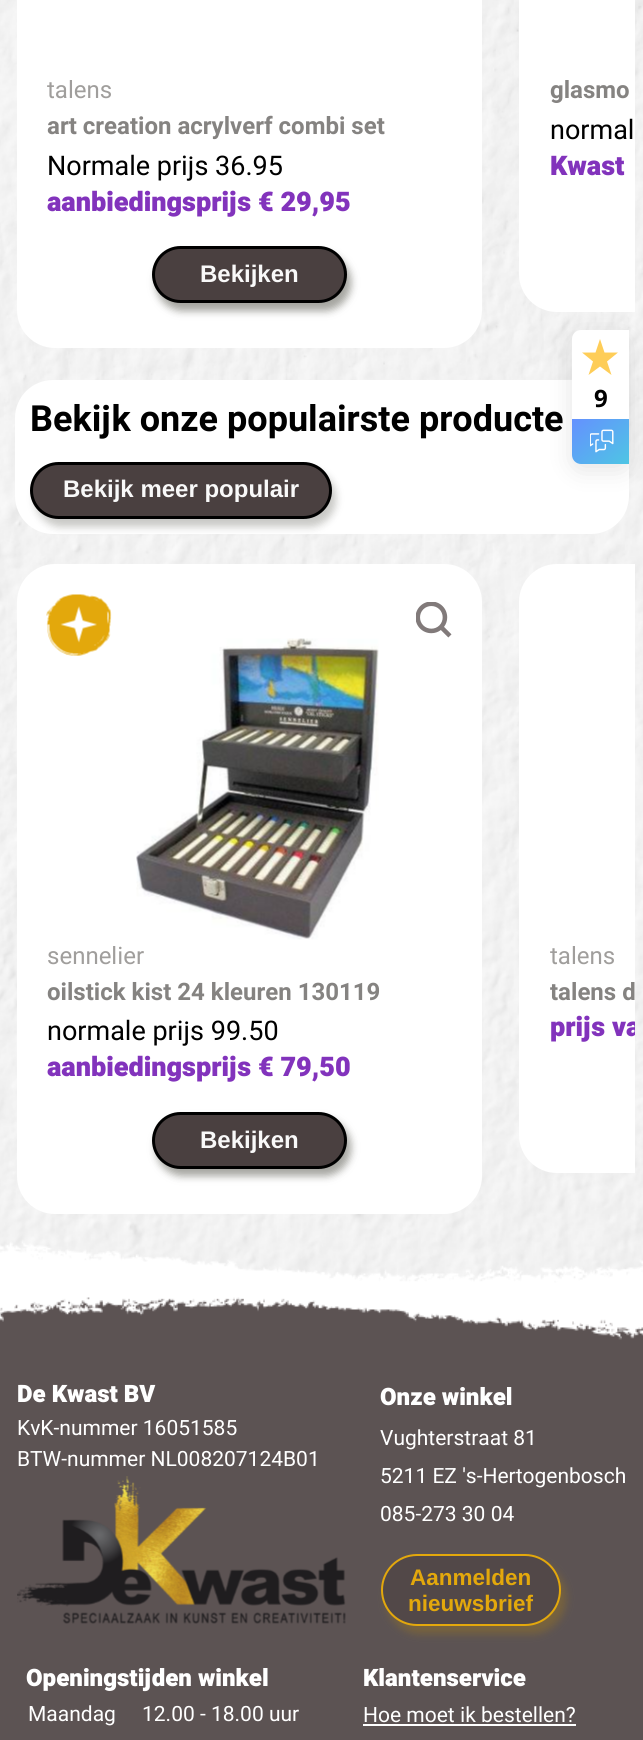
#include <cairo/cairo.h>
#include <math.h>
#include <stddef.h>

static cairo_t *cr;

static void use_color(int r, int g, int b) {
  cairo_set_source_rgb(cr, r / 255.0, g / 255.0, b / 255.0);
}

static void text(double x, double y, const char *s, const char *family, double size, int italic, int bold, int r, int g, int b) {
  cairo_select_font_face(cr, family, italic ? CAIRO_FONT_SLANT_ITALIC : CAIRO_FONT_SLANT_NORMAL,
    bold ? CAIRO_FONT_WEIGHT_BOLD : CAIRO_FONT_WEIGHT_NORMAL);
  cairo_set_font_size(cr, size);
  use_color(r, g, b);
  cairo_move_to(cr, x, y);
  cairo_show_text(cr, s);
}

static void spaced_text(double x, double y, const char *s, double letter, double word) {
  cairo_move_to(cr, x, y);
  while (*s) {
    char ch[5] = {0};
    int n = 0;
    do ch[n++] = *s++; while ((*s & 0xC0) == 0x80);
    cairo_show_text(cr, ch);
    cairo_rel_move_to(cr, letter + word * (*ch == ' '), 0);
  }
}

static void box(double x, double y, double w, double h, int r, int g, int b) {
  use_color(r, g, b);
  cairo_rectangle(cr, x, y, w, h);
  cairo_fill(cr);
}

static void round_rect(double x, double y, double w, double h, double r) {
  cairo_new_sub_path(cr);
  cairo_arc(cr, x + w - r, y + h - r, r, 0, M_PI / 2);
  cairo_arc(cr, x + r, y + h - r, r, M_PI / 2, M_PI);
  cairo_arc(cr, x + r, y + r, r, M_PI, 1.5 * M_PI);
  cairo_arc(cr, x + w - r, y + r, r, 1.5 * M_PI, 2 * M_PI);
  cairo_close_path(cr);
}

static void shadow(double x, double y, double w, double h, double r, double blur, double alpha) {
  cairo_push_group_with_content(cr, CAIRO_CONTENT_ALPHA);
  cairo_set_operator(cr, CAIRO_OPERATOR_SOURCE);
  for (int i = 15; i >= -15 && fmin(w, h) + blur * i / 3 > 0; i -= 2) {
    double e = blur * i / 6;
    cairo_set_source_rgba(cr, 0, 0, 0, alpha * erfc((i - 1) / 8.5) / 2);
    round_rect(x - e, y - e, w + 2 * e, h + 2 * e, fmax(0, fmin(r + e + blur * .6, fmin(w, h) / 2 + e)));
    cairo_fill(cr);
  }
  cairo_pattern_t *soft = cairo_pop_group(cr);
  cairo_mask(cr, soft);
  cairo_pattern_destroy(soft);
}

static void picture(const char *path, double x, double y, double w, double h) {
  cairo_surface_t *image = cairo_image_surface_create_from_png(path);
  cairo_save(cr);
  cairo_set_source_surface(cr, image, x, y);
  cairo_rectangle(cr, x, y, w, h);
  cairo_fill(cr);
  cairo_restore(cr);
  cairo_surface_destroy(image);
}

static void draw(void) {
  cairo_pattern_t *gradient;
  use_color(255, 255, 255);
  cairo_paint(cr);
  picture("img_01.png", 0, 0, 643, 1290);
  use_color(255, 255, 255);
  round_rect(17, -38, 465, 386, 38);
  cairo_fill(cr);
  use_color(74, 74, 64);
  shadow(156, 254, 195, 57, 28.5, 4, 0.5);
  use_color(74, 64, 64);
  round_rect(153.5, 247.5, 192, 54, 27);
  cairo_fill_preserve(cr);
  use_color(0, 0, 0);
  cairo_set_line_width(cr, 3);
  cairo_stroke(cr);
  use_color(255, 255, 255);
  cairo_new_path(cr);
  cairo_move_to(cr, 557, -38);
  cairo_line_to(cr, 635, -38);
  cairo_line_to(cr, 635, 312);
  cairo_line_to(cr, 557, 312);
  cairo_curve_to(cr, 536, 312, 519, 295, 519, 274);
  cairo_line_to(cr, 519, 0);
  cairo_curve_to(cr, 519, -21, 536, -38, 557, -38);
  cairo_close_path(cr);
  cairo_fill(cr);
  round_rect(15, 380, 614, 154, 38);
  cairo_fill(cr);
  use_color(74, 74, 64);
  shadow(35, 470, 301, 57, 28.5, 4, 0.3);
  use_color(74, 64, 64);
  round_rect(31.5, 463.5, 299, 54, 27);
  cairo_fill_preserve(cr);
  use_color(0, 0, 0);
  cairo_stroke(cr);
  use_color(255, 255, 255);
  round_rect(17, 564, 465, 650, 38);
  cairo_fill(cr);
  picture("img_02.png", 46, 594, 66, 62);
  picture("img_03.png", 416, 602, 36, 36);
  picture("img_04.png", 136, 638, 243, 302);
  use_color(74, 74, 64);
  shadow(156, 1119, 195, 57, 28.5, 4, 0.5);
  use_color(74, 64, 64);
  round_rect(153.5, 1113.5, 192, 54, 27);
  cairo_fill_preserve(cr);
  use_color(0, 0, 0);
  cairo_stroke(cr);
  use_color(255, 255, 255);
  cairo_new_path(cr);
  cairo_move_to(cr, 557, 564);
  cairo_line_to(cr, 635, 564);
  cairo_line_to(cr, 635, 1173);
  cairo_line_to(cr, 557, 1173);
  cairo_curve_to(cr, 536, 1173, 519, 1156, 519, 1135);
  cairo_line_to(cr, 519, 602);
  cairo_curve_to(cr, 519, 581, 536, 564, 557, 564);
  cairo_close_path(cr);
  cairo_fill(cr);
  use_color(30, 30, 30);
  shadow(572, 336, 57, 134, 9, 12, 0.12);
  use_color(255, 255, 255);
  cairo_new_path(cr);
  cairo_move_to(cr, 581, 330);
  cairo_line_to(cr, 629, 330);
  cairo_line_to(cr, 629, 464);
  cairo_line_to(cr, 581, 464);
  cairo_curve_to(cr, 576, 464, 572, 460, 572, 455);
  cairo_line_to(cr, 572, 339);
  cairo_curve_to(cr, 572, 334, 576, 330, 581, 330);
  cairo_close_path(cr);
  cairo_fill(cr);
  use_color(254, 205, 88);
  cairo_new_path(cr);
  cairo_move_to(cr, 611.5, 375);
  cairo_line_to(cr, 607, 361.5);
  cairo_line_to(cr, 618, 352.5);
  cairo_line_to(cr, 604.5, 352.5);
  cairo_line_to(cr, 600, 339);
  cairo_line_to(cr, 595.5, 352.5);
  cairo_line_to(cr, 582, 352.5);
  cairo_line_to(cr, 593, 361.5);
  cairo_line_to(cr, 588.5, 375);
  cairo_line_to(cr, 600, 366.5);
  cairo_close_path(cr);
  cairo_fill(cr);
  gradient = cairo_pattern_create_linear(576, 414, 624, 468);
  cairo_pattern_add_color_stop_rgba(gradient, 0, 0.396, 0.565, 1, 1);
  cairo_pattern_add_color_stop_rgba(gradient, 1, 0.306, 0.773, 0.894, 1);
  cairo_set_source(cr, gradient);
  cairo_pattern_destroy(gradient);
  cairo_new_path(cr);
  cairo_move_to(cr, 572, 419);
  cairo_line_to(cr, 629, 419);
  cairo_line_to(cr, 629, 464);
  cairo_line_to(cr, 581, 464);
  cairo_curve_to(cr, 576, 464, 572, 460, 572, 455);
  cairo_close_path(cr);
  cairo_fill(cr);
  picture("img_05.png", 590, 429, 24, 24);
  box(0, 1297, 643, 443, 92, 83, 83);
  picture("img_06.png", 0, 1290, 643, 50);
  picture("img_07.png", 17, 1476, 329, 148);
  use_color(182, 134, 10);
  shadow(386, 1562, 180, 72, 36, 4, 0.3);
  use_color(82, 72, 72);
  round_rect(382, 1555, 178, 70, 35);
  cairo_fill_preserve(cr);
  use_color(227, 168, 12);
  cairo_set_line_width(cr, 2);
  cairo_stroke(cr);
  box(363, 1724, 213, 2, 255, 255, 255);
  text(47, 98, "talens", "Heebo", 24, 0, 0, 160, 158, 156);
  text(47, 134, "art creation acrylverf combi set", "Heebo", 24, 0, 1, 133, 131, 129);
  text(47, 175, "Normale prijs 36.95", "Heebo", 27, 0, 0, 0, 0, 0);
  text(47, 211, "aanbiedingsprijs € 29,95", "Heebo Black", 27, 0, 0, 130, 51, 188);
  text(200, 282, "Bekijken", "Liberation Sans", 24, 0, 1, 249, 249, 249);
  text(550, 98, "glasmo", "Heebo", 24, 0, 1, 133, 131, 129);
  text(550, 139, "normal", "Heebo", 27, 0, 0, 0, 0, 0);
  text(550, 175, "Kwast", "Heebo Black", 27, 0, 0, 130, 51, 188);
  text(30, 431, "Bekijk onze populairste producte", "Heebo", 36, 0, 1, 0, 0, 0);
  text(63, 497, "Bekijk meer populair", "Liberation Sans", 24, 0, 1, 249, 249, 249);
  text(47, 964, "sennelier", "Heebo", 24, 0, 0, 160, 158, 156);
  text(47, 1000, "oilstick kist 24 kleuren 130119", "Heebo", 24, 0, 1, 133, 131, 129);
  text(47, 1040, "normale prijs 99.50", "Heebo", 27, 0, 0, 0, 0, 0);
  text(47, 1076, "aanbiedingsprijs € 79,50", "Heebo Black", 27, 0, 0, 130, 51, 188);
  text(200, 1148, "Bekijken", "Liberation Sans", 24, 0, 1, 249, 249, 249);
  text(550, 964, "talens", "Heebo", 24, 0, 0, 160, 158, 156);
  text(550, 1000, "talens d", "Heebo", 24, 0, 1, 133, 131, 129);
  cairo_save(cr);
  cairo_rectangle(cr, 9, 564, 626, 651);
  cairo_clip(cr);
  text(550, 1036, "prijs va", "Heebo Black", 27, 0, 0, 130, 51, 188);
  cairo_restore(cr);
  cairo_select_font_face(cr, "Open Sans", CAIRO_FONT_SLANT_NORMAL, CAIRO_FONT_WEIGHT_BOLD);
  use_color(0, 0, 0);
  spaced_text(594, 407, "9", -1, 0);
  text(17, 1402, "De Kwast BV", "Heebo Black", 24, 0, 0, 255, 255, 255);
  text(17, 1435, "KvK-nummer 16051585", "Heebo", 21, 0, 0, 255, 255, 255);
  text(17, 1466, "BTW-nummer NL008207124B01", "Heebo", 21, 0, 0, 255, 255, 255);
  text(380, 1405, "Onze winkel", "Heebo Black", 24, 0, 0, 255, 255, 255);
  text(380, 1445, "Vughterstraat 81", "Heebo", 21, 0, 0, 255, 255, 255);
  text(380, 1483, "5211 EZ 's-Hertogenbosch", "Heebo", 21, 0, 0, 255, 255, 255);
  text(380, 1521, "085-273 30 04", "Heebo", 21, 0, 0, 255, 255, 255);
  text(410, 1585, "Aanmelden", "Liberation Sans", 22.5, 0, 1, 227, 168, 12);
  text(408, 1611, "nieuwsbrief", "Liberation Sans", 22.5, 0, 1, 227, 168, 12);
  text(26, 1686, "Openingstijden winkel", "Heebo Black", 24, 0, 0, 255, 255, 255);
  text(28, 1721, "Maandag", "Heebo", 21, 0, 0, 255, 255, 255);
  text(142, 1721, "12.00 - 18.00 uur", "Heebo", 21, 0, 0, 255, 255, 255);
  text(363, 1686, "Klantenservice", "Heebo Black", 24, 0, 0, 255, 255, 255);
  text(363, 1722, "Hoe moet ik bestellen?", "Heebo", 21, 0, 0, 255, 255, 255);
}

int main(void) {
  cairo_surface_t *surface = cairo_image_surface_create(CAIRO_FORMAT_RGB24, 643, 1740);
  cr = cairo_create(surface);
  cairo_font_options_t *options = cairo_font_options_create();
  cairo_font_options_set_hint_metrics(options, CAIRO_HINT_METRICS_OFF);
  cairo_font_options_set_hint_style(options, CAIRO_HINT_STYLE_NONE);
  cairo_set_font_options(cr, options);
  cairo_set_miter_limit(cr, 4);
  draw();
  cairo_surface_write_to_png(surface, "out.png");
  cairo_font_options_destroy(options);
  cairo_destroy(cr);
  cairo_surface_destroy(surface);
  return 0;
}
